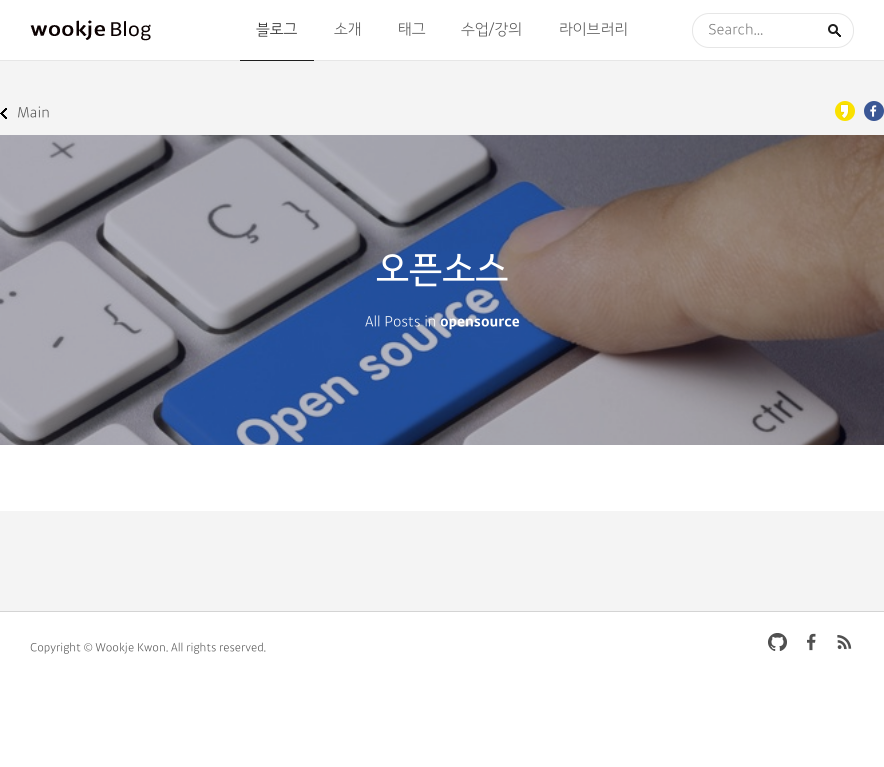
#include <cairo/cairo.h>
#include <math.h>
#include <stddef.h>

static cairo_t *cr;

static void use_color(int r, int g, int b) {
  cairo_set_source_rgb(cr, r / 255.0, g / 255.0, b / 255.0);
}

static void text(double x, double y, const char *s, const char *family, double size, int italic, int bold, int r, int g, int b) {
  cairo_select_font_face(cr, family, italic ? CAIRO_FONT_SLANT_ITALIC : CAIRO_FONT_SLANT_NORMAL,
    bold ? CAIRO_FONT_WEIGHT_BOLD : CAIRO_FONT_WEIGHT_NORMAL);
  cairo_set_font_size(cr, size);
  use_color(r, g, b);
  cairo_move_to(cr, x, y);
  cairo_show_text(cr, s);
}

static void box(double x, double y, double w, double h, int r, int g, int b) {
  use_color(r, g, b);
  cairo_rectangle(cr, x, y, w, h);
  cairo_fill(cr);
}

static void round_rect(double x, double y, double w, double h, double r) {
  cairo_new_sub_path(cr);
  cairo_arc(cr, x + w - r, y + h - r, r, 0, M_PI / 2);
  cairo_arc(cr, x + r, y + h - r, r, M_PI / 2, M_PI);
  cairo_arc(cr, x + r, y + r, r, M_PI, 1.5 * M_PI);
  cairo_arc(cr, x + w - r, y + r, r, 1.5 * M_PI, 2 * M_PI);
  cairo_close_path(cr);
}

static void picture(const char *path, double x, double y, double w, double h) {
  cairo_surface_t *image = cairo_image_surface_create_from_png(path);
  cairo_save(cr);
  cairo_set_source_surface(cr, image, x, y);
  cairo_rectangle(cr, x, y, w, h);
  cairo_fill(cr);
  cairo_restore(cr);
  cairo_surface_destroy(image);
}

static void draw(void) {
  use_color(255, 255, 255);
  cairo_paint(cr);
  box(0, 60, 884, 1, 230, 230, 230);
  picture("img_01.png", 30, 20, 121, 21);
  box(240, 60, 74, 1, 30, 30, 30);
  picture("img_02.png", 828, 24, 13, 13);
  round_rect(692.5, 13.5, 161, 34, 16.5);
  use_color(230, 230, 230);
  cairo_set_line_width(cr, 1);
  cairo_stroke(cr);
  box(0, 61, 884, 550, 244, 244, 244);
  picture("img_03.png", 0, 108, 7, 11);
  picture("img_04.png", 835, 101, 20, 20);
  picture("img_05.png", 864, 101, 20, 20);
  picture("img_06.png", 0, 135, 884, 310);
  box(0, 445, 884, 66, 255, 255, 255);
  box(0, 611, 884, 1, 212, 212, 212);
  picture("img_07.png", 768, 633, 19, 18);
  picture("img_08.png", 807, 633, 9, 18);
  picture("img_09.png", 837, 635, 15, 15);
  text(256, 34, "블로그", "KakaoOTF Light", 15, 0, 0, 30, 30, 30);
  text(334, 34, "소개", "KakaoOTF Light", 15, 0, 0, 80, 80, 80);
  text(398, 34, "태그", "KakaoOTF Light", 15, 0, 0, 80, 80, 80);
  text(461, 34, "수업/강의", "KakaoOTF Light", 15, 0, 0, 80, 80, 80);
  text(559, 34, "라이브러리", "KakaoOTF Light", 15, 0, 0, 80, 80, 80);
  text(708, 34, "Search...", "KakaoOTF Light", 14, 0, 0, 117, 117, 117);
  text(17, 117, "Main", "KakaoOTF Light", 14, 0, 0, 80, 80, 80);
  text(376, 281, "오픈소스", "KakaoOTF", 36, 0, 0, 255, 255, 255);
  text(365, 326, "All Posts in", "KakaoOTF Light", 14, 0, 0, 255, 255, 255);
  text(440, 326, "opensource", "KakaoOTF", 14, 0, 1, 255, 255, 255);
  text(30, 651, "Copyright © Wookje Kwon. All rights reserved.", "KakaoOTF Light", 11, 0, 0, 80, 80, 80);
}

int main(void) {
  cairo_surface_t *surface = cairo_image_surface_create(CAIRO_FORMAT_RGB24, 884, 767);
  cr = cairo_create(surface);
  cairo_font_options_t *options = cairo_font_options_create();
  cairo_font_options_set_hint_metrics(options, CAIRO_HINT_METRICS_OFF);
  cairo_font_options_set_hint_style(options, CAIRO_HINT_STYLE_NONE);
  cairo_set_font_options(cr, options);
  cairo_set_miter_limit(cr, 4);
  draw();
  cairo_surface_write_to_png(surface, "out.png");
  cairo_font_options_destroy(options);
  cairo_destroy(cr);
  cairo_surface_destroy(surface);
  return 0;
}
